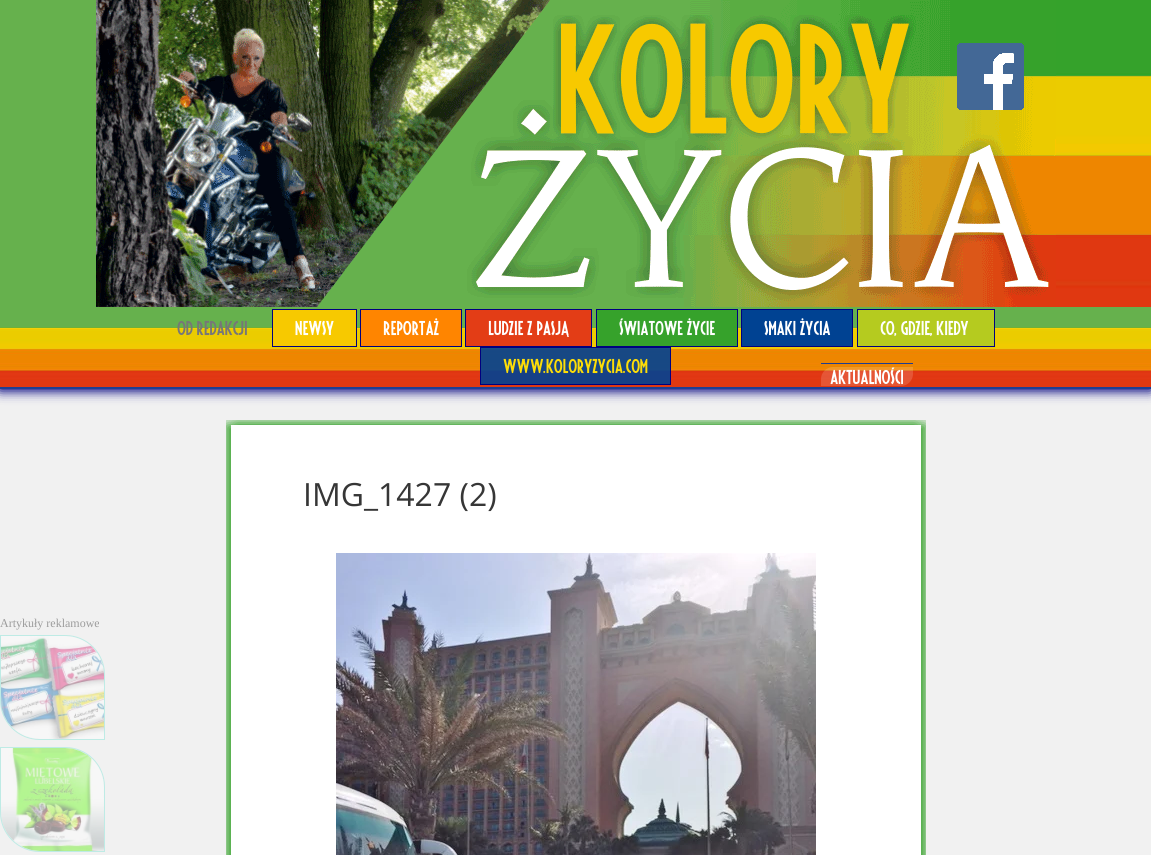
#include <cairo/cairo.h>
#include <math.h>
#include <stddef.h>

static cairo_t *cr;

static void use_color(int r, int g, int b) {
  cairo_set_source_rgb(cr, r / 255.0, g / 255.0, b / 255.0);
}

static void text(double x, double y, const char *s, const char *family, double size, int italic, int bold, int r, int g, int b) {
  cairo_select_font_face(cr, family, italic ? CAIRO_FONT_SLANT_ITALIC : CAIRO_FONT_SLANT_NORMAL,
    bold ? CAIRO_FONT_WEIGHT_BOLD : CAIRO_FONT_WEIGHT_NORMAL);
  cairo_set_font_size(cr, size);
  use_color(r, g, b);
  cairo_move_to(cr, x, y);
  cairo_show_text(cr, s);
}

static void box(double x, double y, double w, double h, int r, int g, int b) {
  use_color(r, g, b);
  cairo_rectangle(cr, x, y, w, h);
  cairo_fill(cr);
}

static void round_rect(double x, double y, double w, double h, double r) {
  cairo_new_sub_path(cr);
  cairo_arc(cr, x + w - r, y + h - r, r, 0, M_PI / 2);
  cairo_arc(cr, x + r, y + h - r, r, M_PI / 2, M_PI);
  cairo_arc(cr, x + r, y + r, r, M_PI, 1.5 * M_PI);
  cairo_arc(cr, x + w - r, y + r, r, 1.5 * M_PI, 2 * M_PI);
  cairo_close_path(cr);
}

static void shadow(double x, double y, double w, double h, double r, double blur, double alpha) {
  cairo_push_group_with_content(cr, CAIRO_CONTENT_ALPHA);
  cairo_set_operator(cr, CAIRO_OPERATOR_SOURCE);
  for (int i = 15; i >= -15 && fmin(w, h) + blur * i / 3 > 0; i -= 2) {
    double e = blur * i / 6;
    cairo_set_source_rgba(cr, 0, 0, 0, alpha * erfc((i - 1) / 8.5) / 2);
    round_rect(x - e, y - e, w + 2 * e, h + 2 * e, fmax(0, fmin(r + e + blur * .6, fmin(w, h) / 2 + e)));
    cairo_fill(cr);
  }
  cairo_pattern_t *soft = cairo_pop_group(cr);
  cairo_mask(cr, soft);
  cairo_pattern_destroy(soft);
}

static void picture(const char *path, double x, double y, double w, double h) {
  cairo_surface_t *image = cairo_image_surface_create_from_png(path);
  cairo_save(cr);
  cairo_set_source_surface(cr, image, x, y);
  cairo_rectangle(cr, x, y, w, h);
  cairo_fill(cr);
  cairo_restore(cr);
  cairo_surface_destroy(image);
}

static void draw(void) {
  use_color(102, 177, 77);
  cairo_paint(cr);
  picture("img_01.png", 1056, 0, 95, 307);
  picture("img_02.png", 96, 0, 960, 307);
  box(0, 389, 1151, 466, 241, 241, 241);
  cairo_save(cr);
  cairo_rectangle(cr, 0, 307, 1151, 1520);
  cairo_clip(cr);
  use_color(0, 0, 128);
  shadow(0, 307, 1151, 80, 0, 6.5, 1);
  shadow(0, 309, 1151, 80, 0, 6.5, 1);
  cairo_restore(cr);
  box(0, 387, 1151, 2, 30, 62, 146);
  picture("img_03.png", 0, 307, 1151, 80);
  use_color(247, 201, 0);
  cairo_rectangle(cr, 272.5, 309.5, 84, 37);
  cairo_fill_preserve(cr);
  use_color(0, 0, 128);
  cairo_set_line_width(cr, 1);
  cairo_stroke(cr);
  use_color(255, 133, 0);
  cairo_rectangle(cr, 360.5, 309.5, 101, 37);
  cairo_fill_preserve(cr);
  use_color(0, 0, 128);
  cairo_stroke(cr);
  use_color(227, 61, 22);
  cairo_rectangle(cr, 465.5, 309.5, 126, 37);
  cairo_fill_preserve(cr);
  use_color(0, 0, 128);
  cairo_stroke(cr);
  use_color(54, 162, 43);
  cairo_rectangle(cr, 596.5, 309.5, 141, 37);
  cairo_fill_preserve(cr);
  use_color(0, 0, 128);
  cairo_stroke(cr);
  use_color(0, 66, 146);
  cairo_rectangle(cr, 741.5, 309.5, 111, 37);
  cairo_fill_preserve(cr);
  use_color(0, 0, 128);
  cairo_stroke(cr);
  use_color(181, 203, 31);
  cairo_rectangle(cr, 857.5, 309.5, 137, 37);
  cairo_fill_preserve(cr);
  use_color(0, 0, 128);
  cairo_stroke(cr);
  cairo_set_source_rgba(cr, 0, 0.259, 0.573, 0.9);
  cairo_rectangle(cr, 480.5, 347.5, 190, 37);
  cairo_fill_preserve(cr);
  use_color(0, 0, 128);
  cairo_stroke(cr);
  box(821, 363, 92, 1, 30, 62, 146);
  cairo_set_source_rgba(cr, 1, 1, 1, 0.15);
  cairo_new_path(cr);
  cairo_move_to(cr, 833, 367);
  cairo_line_to(cr, 913, 367);
  cairo_line_to(cr, 913, 374);
  cairo_curve_to(cr, 913, 380.5, 907.5, 386, 901, 386);
  cairo_line_to(cr, 821, 386);
  cairo_line_to(cr, 821, 379);
  cairo_curve_to(cr, 821, 372.5, 826.5, 367, 833, 367);
  cairo_close_path(cr);
  cairo_fill(cr);
  cairo_save(cr);
  cairo_rectangle(cr, 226, 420, 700, 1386);
  cairo_clip(cr);
  use_color(54, 162, 43);
  shadow(226, 425, 690, 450, 0, 6.5, 1);
  shadow(236, 425, 690, 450, 0, 6.5, 1);
  cairo_restore(cr);
  box(231, 425, 690, 430, 255, 255, 255);
  picture("img_04.png", 336, 553, 480, 302);
  cairo_new_path(cr);
  cairo_move_to(cr, 0.5, 635.5);
  cairo_line_to(cr, 65, 635.5);
  cairo_curve_to(cr, 87, 635.5, 104.5, 653, 104.5, 675);
  cairo_line_to(cr, 104.5, 739.5);
  cairo_line_to(cr, 40, 739.5);
  cairo_curve_to(cr, 18, 739.5, 0.5, 722, 0.5, 700);
  cairo_close_path(cr);
  use_color(190, 235, 229);
  cairo_stroke(cr);
  picture("img_05.png", 1, 636, 103, 103);
  cairo_new_path(cr);
  cairo_move_to(cr, 0.5, 747.5);
  cairo_line_to(cr, 65, 747.5);
  cairo_curve_to(cr, 87, 747.5, 104.5, 765, 104.5, 787);
  cairo_line_to(cr, 104.5, 851.5);
  cairo_line_to(cr, 40, 851.5);
  cairo_curve_to(cr, 18, 851.5, 0.5, 834, 0.5, 812);
  cairo_close_path(cr);
  cairo_stroke(cr);
  picture("img_06.png", 1, 748, 103, 103);
  text(177, 335, "Od redakcji", "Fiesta", 16, 0, 0, 119, 119, 119);
  text(295, 335, "NEWSY", "Fiesta", 16, 0, 0, 255, 255, 255);
  text(383, 335, "REPORTAŻ", "Fiesta", 16, 0, 0, 255, 255, 255);
  text(488, 335, "LUDZIE Z PASJĄ", "Fiesta", 16, 0, 0, 255, 255, 255);
  text(619, 335, "ŚWIATOWE ŻYCIE", "Fiesta", 16, 0, 0, 255, 255, 255);
  text(764, 335, "SMAKI ŻYCIA", "Fiesta", 16, 0, 0, 255, 255, 255);
  text(880, 335, "CO, GDZIE, KIEDY…", "Fiesta", 16, 0, 0, 255, 255, 255);
  text(503, 373, "WWW.KOLORYZYCIA.COM", "Fiesta", 16, 0, 0, 253, 221, 7);
  text(830, 384, "AKTUALNOŚCI", "Fiesta", 16, 0, 0, 255, 255, 255);
  text(303, 506, "IMG_1427 (2)", "Open Sans", 32, 0, 0, 54, 54, 54);
  text(0, 627, "Artykuły reklamowe", "Liberation Serif", 12, 0, 0, 156, 156, 156);
}

int main(void) {
  cairo_surface_t *surface = cairo_image_surface_create(CAIRO_FORMAT_RGB24, 1151, 855);
  cr = cairo_create(surface);
  cairo_font_options_t *options = cairo_font_options_create();
  cairo_font_options_set_hint_metrics(options, CAIRO_HINT_METRICS_OFF);
  cairo_font_options_set_hint_style(options, CAIRO_HINT_STYLE_NONE);
  cairo_set_font_options(cr, options);
  cairo_set_miter_limit(cr, 4);
  draw();
  cairo_surface_write_to_png(surface, "out.png");
  cairo_font_options_destroy(options);
  cairo_destroy(cr);
  cairo_surface_destroy(surface);
  return 0;
}
